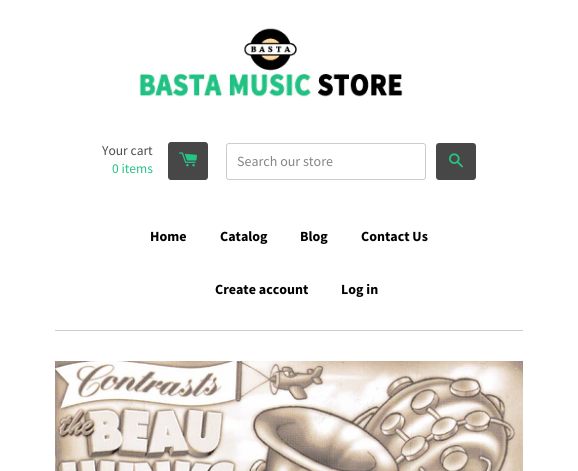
#include <cairo/cairo.h>
#include <math.h>
#include <stddef.h>

static cairo_t *cr;

static void use_color(int r, int g, int b) {
  cairo_set_source_rgb(cr, r / 255.0, g / 255.0, b / 255.0);
}

static void text(double x, double y, const char *s, const char *family, double size, int italic, int bold, int r, int g, int b) {
  cairo_select_font_face(cr, family, italic ? CAIRO_FONT_SLANT_ITALIC : CAIRO_FONT_SLANT_NORMAL,
    bold ? CAIRO_FONT_WEIGHT_BOLD : CAIRO_FONT_WEIGHT_NORMAL);
  cairo_set_font_size(cr, size);
  use_color(r, g, b);
  cairo_move_to(cr, x, y);
  cairo_show_text(cr, s);
}

static void box(double x, double y, double w, double h, int r, int g, int b) {
  use_color(r, g, b);
  cairo_rectangle(cr, x, y, w, h);
  cairo_fill(cr);
}

static void round_rect(double x, double y, double w, double h, double r) {
  cairo_new_sub_path(cr);
  cairo_arc(cr, x + w - r, y + h - r, r, 0, M_PI / 2);
  cairo_arc(cr, x + r, y + h - r, r, M_PI / 2, M_PI);
  cairo_arc(cr, x + r, y + r, r, M_PI, 1.5 * M_PI);
  cairo_arc(cr, x + w - r, y + r, r, 1.5 * M_PI, 2 * M_PI);
  cairo_close_path(cr);
}

static void picture(const char *path, double x, double y, double w, double h) {
  cairo_surface_t *image = cairo_image_surface_create_from_png(path);
  cairo_save(cr);
  cairo_set_source_surface(cr, image, x, y);
  cairo_rectangle(cr, x, y, w, h);
  cairo_fill(cr);
  cairo_restore(cr);
  cairo_surface_destroy(image);
}

static void draw(void) {
  use_color(255, 255, 255);
  cairo_paint(cr);
  picture("img_01.png", 139, 28, 264, 70);
  use_color(71, 71, 71);
  round_rect(168, 142, 40, 38, 3);
  cairo_fill(cr);
  picture("img_02.png", 179, 152, 18, 15);
  round_rect(226.5, 143.5, 199, 36, 2.5);
  use_color(204, 204, 204);
  cairo_set_line_width(cr, 1);
  cairo_stroke(cr);
  use_color(71, 71, 71);
  round_rect(436, 143, 40, 37, 3);
  cairo_fill(cr);
  picture("img_03.png", 449, 153, 14, 15);
  box(55, 330, 468, 1, 204, 204, 204);
  picture("img_04.png", 55, 361, 468, 110);
  text(102, 155, "Your cart", "Source Sans Pro", 13.5, 0, 0, 76, 76, 76);
  text(112, 173, "0 items", "Source Sans Pro", 13.5, 0, 0, 38, 195, 134);
  text(237, 166, "Search our store", "Source Sans Pro", 14, 0, 0, 133, 133, 133);
  text(150, 241, "Home", "Source Sans Pro", 14, 0, 1, 0, 0, 0);
  text(220, 241, "Catalog", "Source Sans Pro", 14, 0, 1, 0, 0, 0);
  text(300, 241, "Blog", "Source Sans Pro", 14, 0, 1, 0, 0, 0);
  text(361, 241, "Contact Us", "Source Sans Pro", 14, 0, 1, 0, 0, 0);
  text(215, 294, "Create account", "Source Sans Pro", 14, 0, 1, 0, 0, 0);
  text(341, 294, "Log in", "Source Sans Pro", 14, 0, 1, 0, 0, 0);
}

int main(void) {
  cairo_surface_t *surface = cairo_image_surface_create(CAIRO_FORMAT_RGB24, 578, 471);
  cr = cairo_create(surface);
  cairo_font_options_t *options = cairo_font_options_create();
  cairo_font_options_set_hint_metrics(options, CAIRO_HINT_METRICS_OFF);
  cairo_font_options_set_hint_style(options, CAIRO_HINT_STYLE_NONE);
  cairo_set_font_options(cr, options);
  cairo_set_miter_limit(cr, 4);
  draw();
  cairo_surface_write_to_png(surface, "out.png");
  cairo_font_options_destroy(options);
  cairo_destroy(cr);
  cairo_surface_destroy(surface);
  return 0;
}
